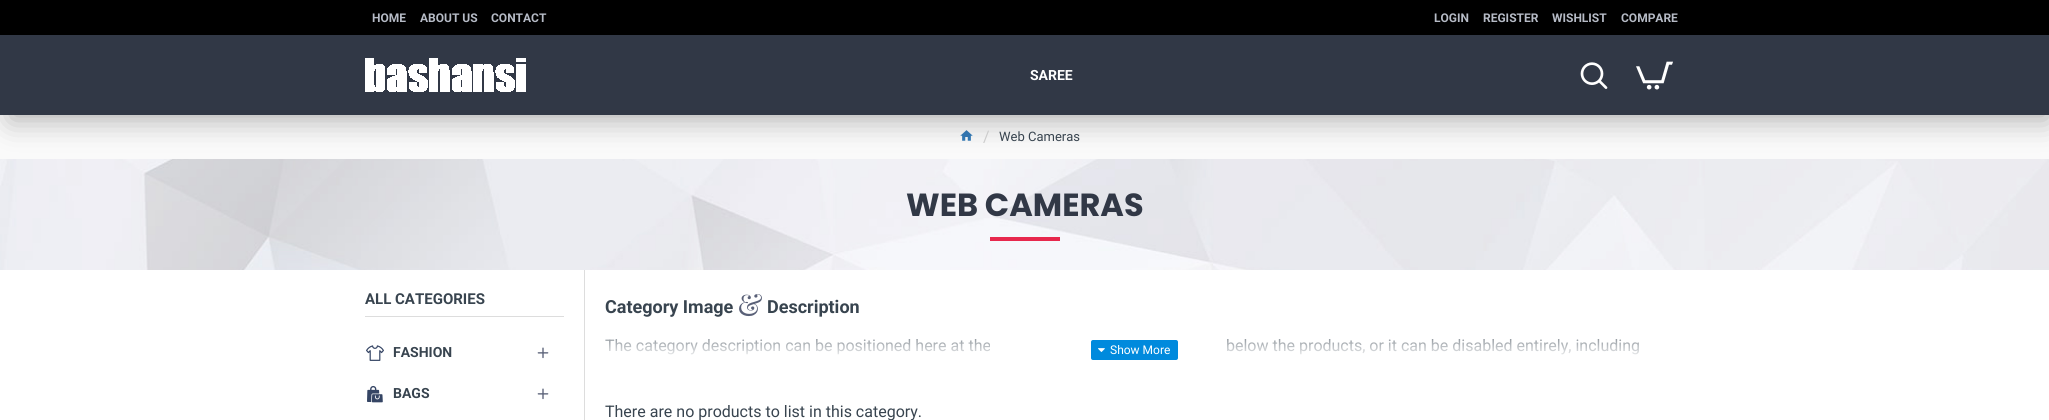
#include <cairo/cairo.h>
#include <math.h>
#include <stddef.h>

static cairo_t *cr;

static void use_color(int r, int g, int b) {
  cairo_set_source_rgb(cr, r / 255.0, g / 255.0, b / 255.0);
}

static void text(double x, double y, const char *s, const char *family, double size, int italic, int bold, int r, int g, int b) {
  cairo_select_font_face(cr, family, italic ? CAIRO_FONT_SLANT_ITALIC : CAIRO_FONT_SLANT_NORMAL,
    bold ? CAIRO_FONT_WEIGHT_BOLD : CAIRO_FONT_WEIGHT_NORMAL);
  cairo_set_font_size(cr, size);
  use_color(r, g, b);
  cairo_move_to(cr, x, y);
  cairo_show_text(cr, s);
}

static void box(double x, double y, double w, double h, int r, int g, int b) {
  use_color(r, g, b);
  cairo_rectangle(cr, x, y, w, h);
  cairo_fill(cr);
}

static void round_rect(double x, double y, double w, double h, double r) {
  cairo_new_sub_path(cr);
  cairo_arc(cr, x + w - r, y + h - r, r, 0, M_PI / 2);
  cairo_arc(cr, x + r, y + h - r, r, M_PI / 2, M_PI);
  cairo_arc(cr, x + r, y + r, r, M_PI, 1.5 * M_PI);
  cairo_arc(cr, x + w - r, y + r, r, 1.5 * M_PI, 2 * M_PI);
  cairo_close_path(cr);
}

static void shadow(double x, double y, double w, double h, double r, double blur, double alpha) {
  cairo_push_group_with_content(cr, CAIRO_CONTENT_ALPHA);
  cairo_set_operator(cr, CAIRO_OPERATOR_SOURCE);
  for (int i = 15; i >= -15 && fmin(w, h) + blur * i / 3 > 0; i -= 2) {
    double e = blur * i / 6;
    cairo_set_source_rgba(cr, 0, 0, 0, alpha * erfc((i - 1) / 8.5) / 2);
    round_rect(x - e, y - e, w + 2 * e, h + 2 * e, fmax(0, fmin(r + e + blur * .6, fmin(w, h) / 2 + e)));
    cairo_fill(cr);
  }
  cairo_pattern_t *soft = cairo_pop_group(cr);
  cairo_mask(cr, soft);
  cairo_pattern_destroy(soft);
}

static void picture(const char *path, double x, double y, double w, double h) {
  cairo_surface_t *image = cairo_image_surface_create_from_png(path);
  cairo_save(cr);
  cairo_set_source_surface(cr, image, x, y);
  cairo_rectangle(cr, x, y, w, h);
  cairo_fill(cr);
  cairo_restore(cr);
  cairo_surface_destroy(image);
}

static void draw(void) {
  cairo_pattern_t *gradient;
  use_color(255, 255, 255);
  cairo_paint(cr);
  box(0, 115, 2049, 44, 250, 250, 250);
  picture("img_04.png", 960, 130, 13, 11);
  picture("img_05.png", 0, 159, 2049, 111);
  use_color(0, 0, 0);
  shadow(10, 15, 2039, 105, 0, 15, 0.3);
  box(0, 35, 2049, 80, 49, 56, 70);
  box(0, 0, 2049, 35, 0, 0, 0);
  picture("img_01.png", 365, 58, 161, 34);
  picture("img_02.png", 1580, 62, 28, 27);
  picture("img_03.png", 1636, 61, 37, 29);
  box(990, 237, 70, 4, 231, 40, 77);
  box(584, 270, 1, 150, 221, 221, 221);
  box(365, 316, 199, 1, 221, 221, 221);
  picture("img_06.png", 366, 345, 18, 16);
  picture("img_07.png", 537, 347, 12, 12);
  picture("img_08.png", 367, 385, 16, 18);
  picture("img_07.png", 537, 388, 12, 12);
  picture("img_09.png", 739, 294, 23, 23);
  text(372, 22, "HOME", "Roboto", 12, 0, 1, 182, 187, 198);
  text(420, 22, "ABOUT US", "Roboto", 12, 0, 1, 182, 187, 198);
  text(491, 22, "CONTACT", "Roboto", 12, 0, 1, 182, 187, 198);
  text(1434, 22, "LOGIN", "Roboto", 12, 0, 1, 182, 187, 198);
  text(1483, 22, "REGISTER", "Roboto", 12, 0, 1, 182, 187, 198);
  text(1552, 22, "WISHLIST", "Roboto", 12, 0, 1, 182, 187, 198);
  text(1621, 22, "COMPARE", "Roboto", 12, 0, 1, 182, 187, 198);
  text(1030, 80, "SAREE", "Roboto", 14, 0, 1, 255, 255, 255);
  text(983, 142, "/", "Roboto", 16, 0, 0, 204, 204, 204);
  text(999, 141, "Web Cameras", "Roboto", 13, 0, 0, 56, 68, 79);
  text(906, 216, "WEB CAMERAS", "Poppins", 32, 0, 1, 49, 56, 70);
  text(365, 304, "ALL CATEGORIES", "Roboto", 15, 0, 1, 56, 68, 79);
  text(393, 357, "FASHION", "Roboto", 14, 0, 1, 56, 68, 79);
  text(393, 398, "BAGS", "Roboto", 14, 0, 1, 56, 68, 79);
  text(605, 313, "Category Image", "Roboto", 18, 0, 1, 56, 68, 79);
  text(767, 313, "Description", "Roboto", 18, 0, 1, 56, 68, 79);
  text(605, 351, "The category description can be positioned here at the", "Roboto", 16, 0, 0, 56, 68, 79);
  text(1226, 351, "below the products, or it can be disabled entirely, including", "Roboto", 16, 0, 0, 56, 68, 79);
  gradient = cairo_pattern_create_linear(1135, 320, 1135, 360);
  cairo_pattern_add_color_stop_rgba(gradient, 0, 1, 1, 1, 0);
  cairo_pattern_add_color_stop_rgba(gradient, 1, 1, 1, 1, 1);
  cairo_set_source(cr, gradient);
  cairo_pattern_destroy(gradient);
  cairo_rectangle(cr, 605, 339, 1034, 16);
  cairo_fill(cr);
  use_color(0, 138, 221);
  round_rect(1091, 340, 87, 20, 2);
  cairo_fill(cr);
  picture("img_10.png", 1098, 348, 7, 4);
  text(1110, 354, "Show More", "Roboto", 12, 0, 0, 255, 255, 255);
  text(605, 417, "There are no products to list in this category.", "Roboto", 16, 0, 0, 56, 68, 79);
}

int main(void) {
  cairo_surface_t *surface = cairo_image_surface_create(CAIRO_FORMAT_RGB24, 2049, 420);
  cr = cairo_create(surface);
  cairo_font_options_t *options = cairo_font_options_create();
  cairo_font_options_set_hint_metrics(options, CAIRO_HINT_METRICS_OFF);
  cairo_font_options_set_hint_style(options, CAIRO_HINT_STYLE_NONE);
  cairo_set_font_options(cr, options);
  cairo_set_miter_limit(cr, 4);
  draw();
  cairo_surface_write_to_png(surface, "out.png");
  cairo_font_options_destroy(options);
  cairo_destroy(cr);
  cairo_surface_destroy(surface);
  return 0;
}
